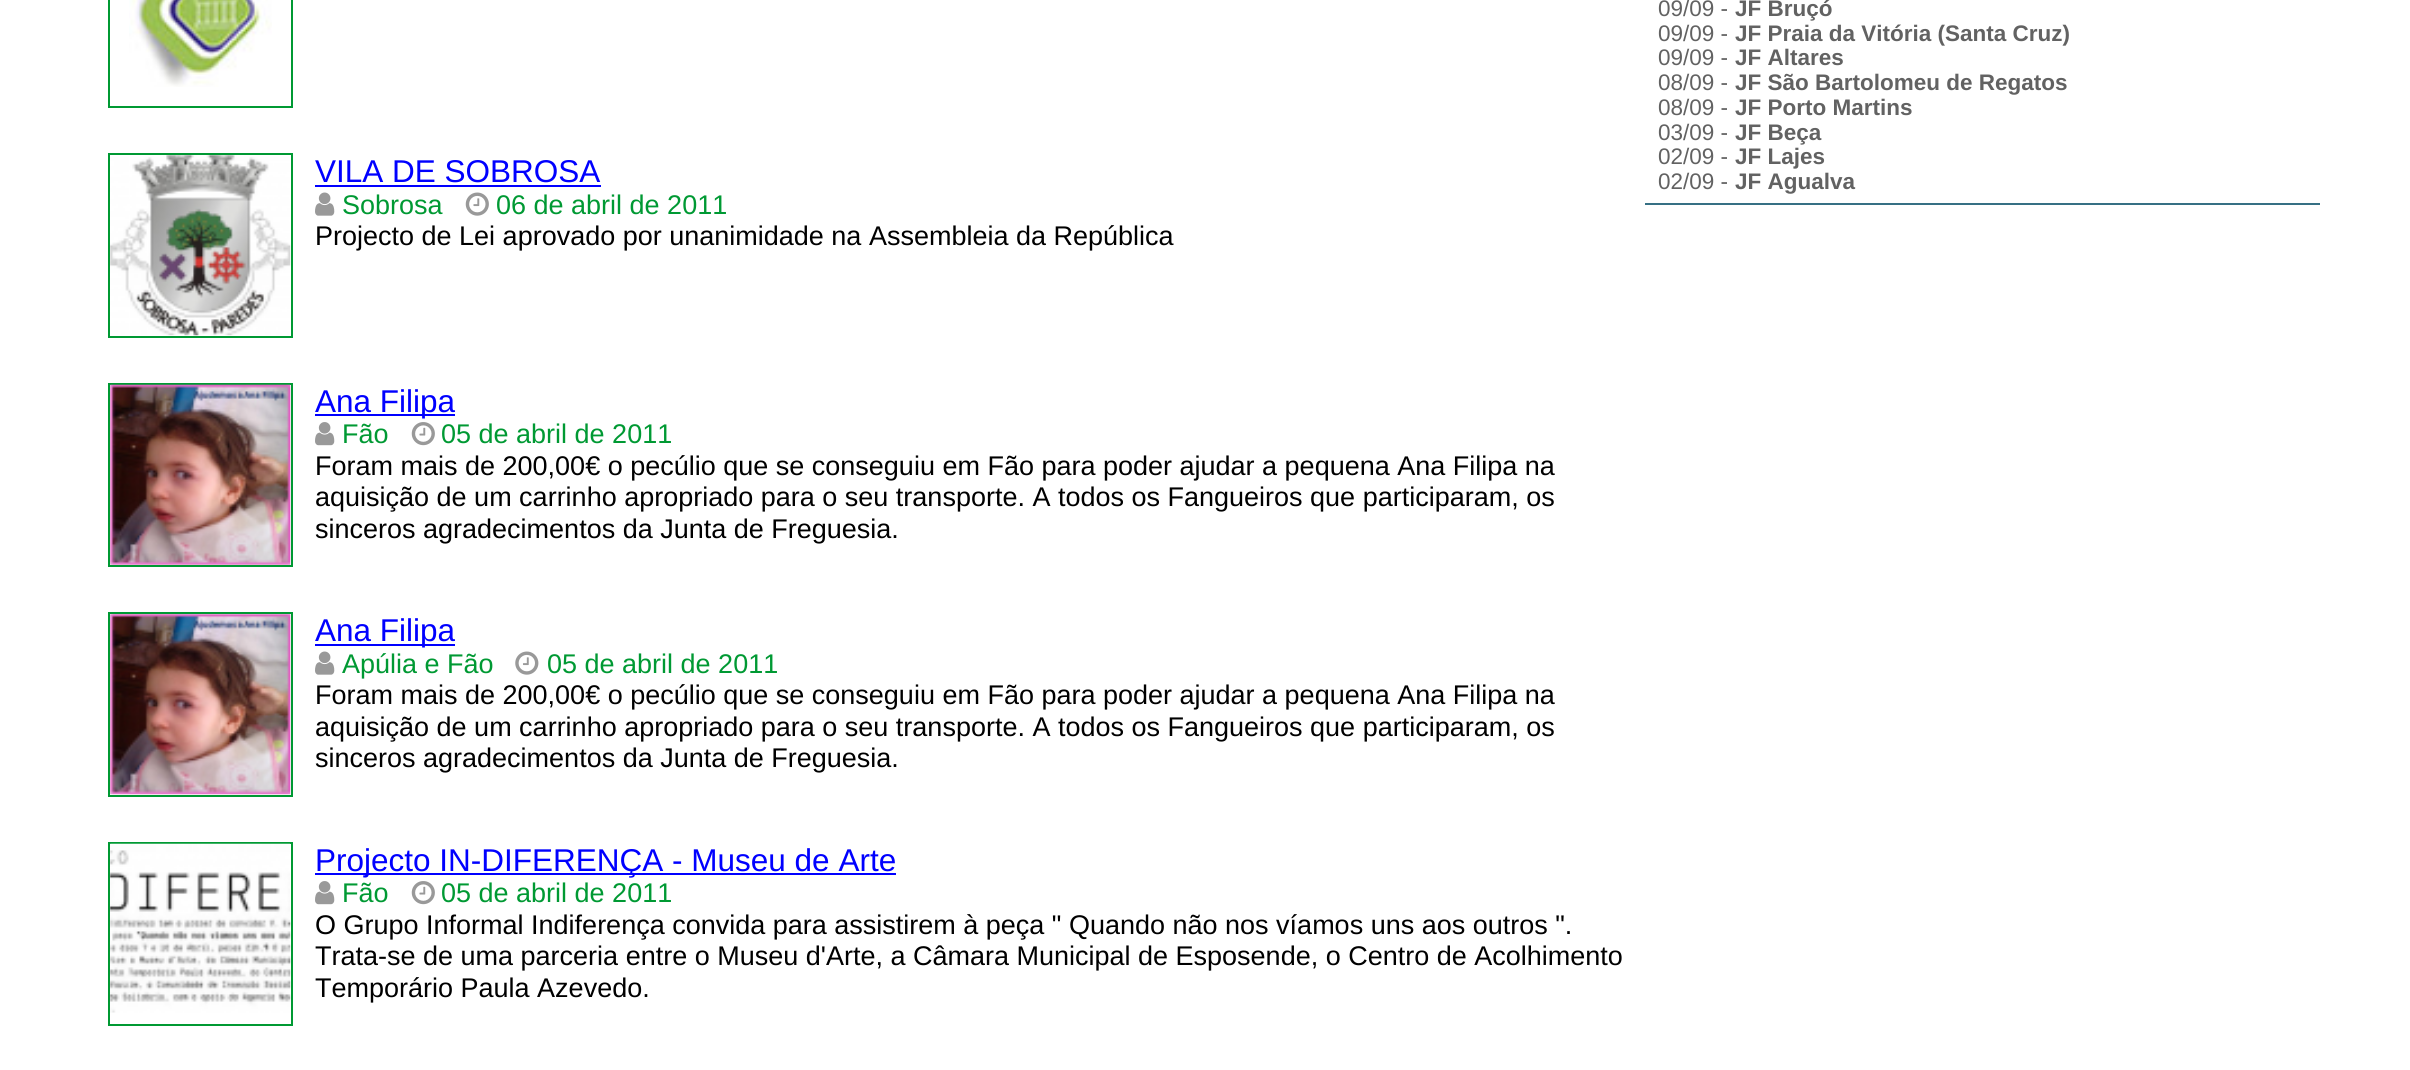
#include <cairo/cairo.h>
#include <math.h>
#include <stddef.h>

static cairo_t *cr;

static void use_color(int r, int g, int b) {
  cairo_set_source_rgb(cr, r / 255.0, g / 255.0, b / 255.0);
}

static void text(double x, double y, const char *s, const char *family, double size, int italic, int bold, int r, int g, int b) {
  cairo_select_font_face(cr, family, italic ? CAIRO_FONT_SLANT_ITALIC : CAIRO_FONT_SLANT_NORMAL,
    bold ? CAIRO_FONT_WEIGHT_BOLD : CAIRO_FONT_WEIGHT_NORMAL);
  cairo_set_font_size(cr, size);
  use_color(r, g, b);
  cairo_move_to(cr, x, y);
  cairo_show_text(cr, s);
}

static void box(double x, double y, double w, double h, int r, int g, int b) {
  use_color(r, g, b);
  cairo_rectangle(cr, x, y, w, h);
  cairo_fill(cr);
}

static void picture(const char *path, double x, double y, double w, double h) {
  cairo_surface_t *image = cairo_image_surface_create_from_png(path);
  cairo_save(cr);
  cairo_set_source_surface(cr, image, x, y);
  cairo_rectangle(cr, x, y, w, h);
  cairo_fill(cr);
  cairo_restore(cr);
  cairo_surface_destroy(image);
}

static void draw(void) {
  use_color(255, 255, 255);
  cairo_paint(cr);
  box(1645, 203, 675, 2, 54, 112, 132);
  cairo_rectangle(cr, 109, -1, 183, 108);
  use_color(0, 153, 51);
  cairo_stroke(cr);
  picture("img_01.png", 129, 0, 143, 87);
  cairo_rectangle(cr, 109, 154, 183, 183);
  cairo_stroke(cr);
  picture("img_02.png", 110, 155, 181, 181);
  box(315, 185, 286, 2, 0, 0, 255);
  picture("img_03.png", 315, 192, 20, 24);
  picture("img_04.png", 465, 192, 24, 24);
  cairo_rectangle(cr, 109, 384, 183, 182);
  use_color(0, 153, 51);
  cairo_stroke(cr);
  picture("img_05.png", 110, 384, 181, 181);
  box(315, 414, 140, 2, 0, 0, 255);
  picture("img_06.png", 315, 422, 20, 24);
  picture("img_07.png", 411, 422, 24, 24);
  cairo_rectangle(cr, 109, 613, 183, 183);
  use_color(0, 153, 51);
  cairo_stroke(cr);
  picture("img_08.png", 110, 614, 181, 181);
  box(315, 644, 140, 2, 0, 0, 255);
  picture("img_03.png", 315, 651, 20, 24);
  picture("img_09.png", 515, 651, 24, 24);
  cairo_rectangle(cr, 109, 843, 183, 182);
  use_color(0, 153, 51);
  cairo_stroke(cr);
  picture("img_10.png", 110, 843, 181, 170);
  box(315, 873, 581, 2, 0, 0, 255);
  picture("img_06.png", 315, 881, 20, 24);
  picture("img_07.png", 411, 881, 24, 24);
  text(1658, 16, "09/09 -", "Liberation Sans", 22.5, 0, 0, 98, 98, 98);
  text(1735, 16, "JF Bruçó", "Liberation Sans", 22.5, 0, 1, 98, 98, 98);
  text(1658, 41, "09/09 -", "Liberation Sans", 22.5, 0, 0, 98, 98, 98);
  text(1735, 41, "JF Praia da Vitória (Santa Cruz)", "Liberation Sans", 22.5, 0, 1, 98, 98, 98);
  text(1658, 65, "09/09 -", "Liberation Sans", 22.5, 0, 0, 98, 98, 98);
  text(1735, 65, "JF Altares", "Liberation Sans", 22.5, 0, 1, 98, 98, 98);
  text(1658, 90, "08/09 -", "Liberation Sans", 22.5, 0, 0, 98, 98, 98);
  text(1735, 90, "JF São Bartolomeu de Regatos", "Liberation Sans", 22.5, 0, 1, 98, 98, 98);
  text(1658, 115, "08/09 -", "Liberation Sans", 22.5, 0, 0, 98, 98, 98);
  text(1735, 115, "JF Porto Martins", "Liberation Sans", 22.5, 0, 1, 98, 98, 98);
  text(1658, 140, "03/09 -", "Liberation Sans", 22.5, 0, 0, 98, 98, 98);
  text(1735, 140, "JF Beça", "Liberation Sans", 22.5, 0, 1, 98, 98, 98);
  text(1658, 164, "02/09 -", "Liberation Sans", 22.5, 0, 0, 98, 98, 98);
  text(1735, 164, "JF Lajes", "Liberation Sans", 22.5, 0, 1, 98, 98, 98);
  text(1658, 189, "02/09 -", "Liberation Sans", 22.5, 0, 0, 98, 98, 98);
  text(1735, 189, "JF Agualva", "Liberation Sans", 22.5, 0, 1, 98, 98, 98);
  text(315, 182, "VILA DE SOBROSA", "Liberation Sans", 31.5, 0, 0, 0, 0, 255);
  text(342, 214, "Sobrosa", "Liberation Sans", 27, 0, 0, 0, 153, 51);
  text(496, 214, "06 de abril de 2011", "Liberation Sans", 27, 0, 0, 0, 153, 51);
  text(315, 245, "Projecto de Lei aprovado por unanimidade na Assembleia da República", "Liberation Sans", 27, 0, 0, 0, 0, 0);
  text(315, 412, "Ana Filipa", "Liberation Sans", 31.5, 0, 0, 0, 0, 255);
  text(342, 443, "Fão", "Liberation Sans", 27, 0, 0, 0, 153, 51);
  text(441, 443, "05 de abril de 2011", "Liberation Sans", 27, 0, 0, 0, 153, 51);
  text(315, 475, "Foram mais de 200,00€ o pecúlio que se conseguiu em Fão para poder ajudar a pequena Ana Filipa na", "Liberation Sans", 27, 0, 0, 0, 0, 0);
  text(315, 506, "aquisição de um carrinho apropriado para o seu transporte. A todos os Fangueiros que participaram, os", "Liberation Sans", 27, 0, 0, 0, 0, 0);
  text(315, 538, "sinceros agradecimentos da Junta de Freguesia.", "Liberation Sans", 27, 0, 0, 0, 0, 0);
  text(315, 641, "Ana Filipa", "Liberation Sans", 31.5, 0, 0, 0, 0, 255);
  text(342, 673, "Apúlia e Fão", "Liberation Sans", 27, 0, 0, 0, 153, 51);
  text(547, 673, "05 de abril de 2011", "Liberation Sans", 27, 0, 0, 0, 153, 51);
  text(315, 704, "Foram mais de 200,00€ o pecúlio que se conseguiu em Fão para poder ajudar a pequena Ana Filipa na", "Liberation Sans", 27, 0, 0, 0, 0, 0);
  text(315, 736, "aquisição de um carrinho apropriado para o seu transporte. A todos os Fangueiros que participaram, os", "Liberation Sans", 27, 0, 0, 0, 0, 0);
  text(315, 767, "sinceros agradecimentos da Junta de Freguesia.", "Liberation Sans", 27, 0, 0, 0, 0, 0);
  text(315, 871, "Projecto IN-DIFERENÇA - Museu de Arte", "Liberation Sans", 31.5, 0, 0, 0, 0, 255);
  text(342, 902, "Fão", "Liberation Sans", 27, 0, 0, 0, 153, 51);
  text(441, 902, "05 de abril de 2011", "Liberation Sans", 27, 0, 0, 0, 153, 51);
  text(315, 934, "O Grupo Informal Indiferença convida para assistirem à peça \" Quando não nos víamos uns aos outros \".", "Liberation Sans", 27, 0, 0, 0, 0, 0);
  text(315, 965, "Trata-se de uma parceria entre o Museu d'Arte, a Câmara Municipal de Esposende, o Centro de Acolhimento", "Liberation Sans", 27, 0, 0, 0, 0, 0);
  text(315, 997, "Temporário Paula Azevedo.", "Liberation Sans", 27, 0, 0, 0, 0, 0);
}

int main(void) {
  cairo_surface_t *surface = cairo_image_surface_create(CAIRO_FORMAT_RGB24, 2410, 1070);
  cr = cairo_create(surface);
  cairo_font_options_t *options = cairo_font_options_create();
  cairo_font_options_set_hint_metrics(options, CAIRO_HINT_METRICS_OFF);
  cairo_font_options_set_hint_style(options, CAIRO_HINT_STYLE_NONE);
  cairo_set_font_options(cr, options);
  cairo_set_miter_limit(cr, 4);
  draw();
  cairo_surface_write_to_png(surface, "out.png");
  cairo_font_options_destroy(options);
  cairo_destroy(cr);
  cairo_surface_destroy(surface);
  return 0;
}
